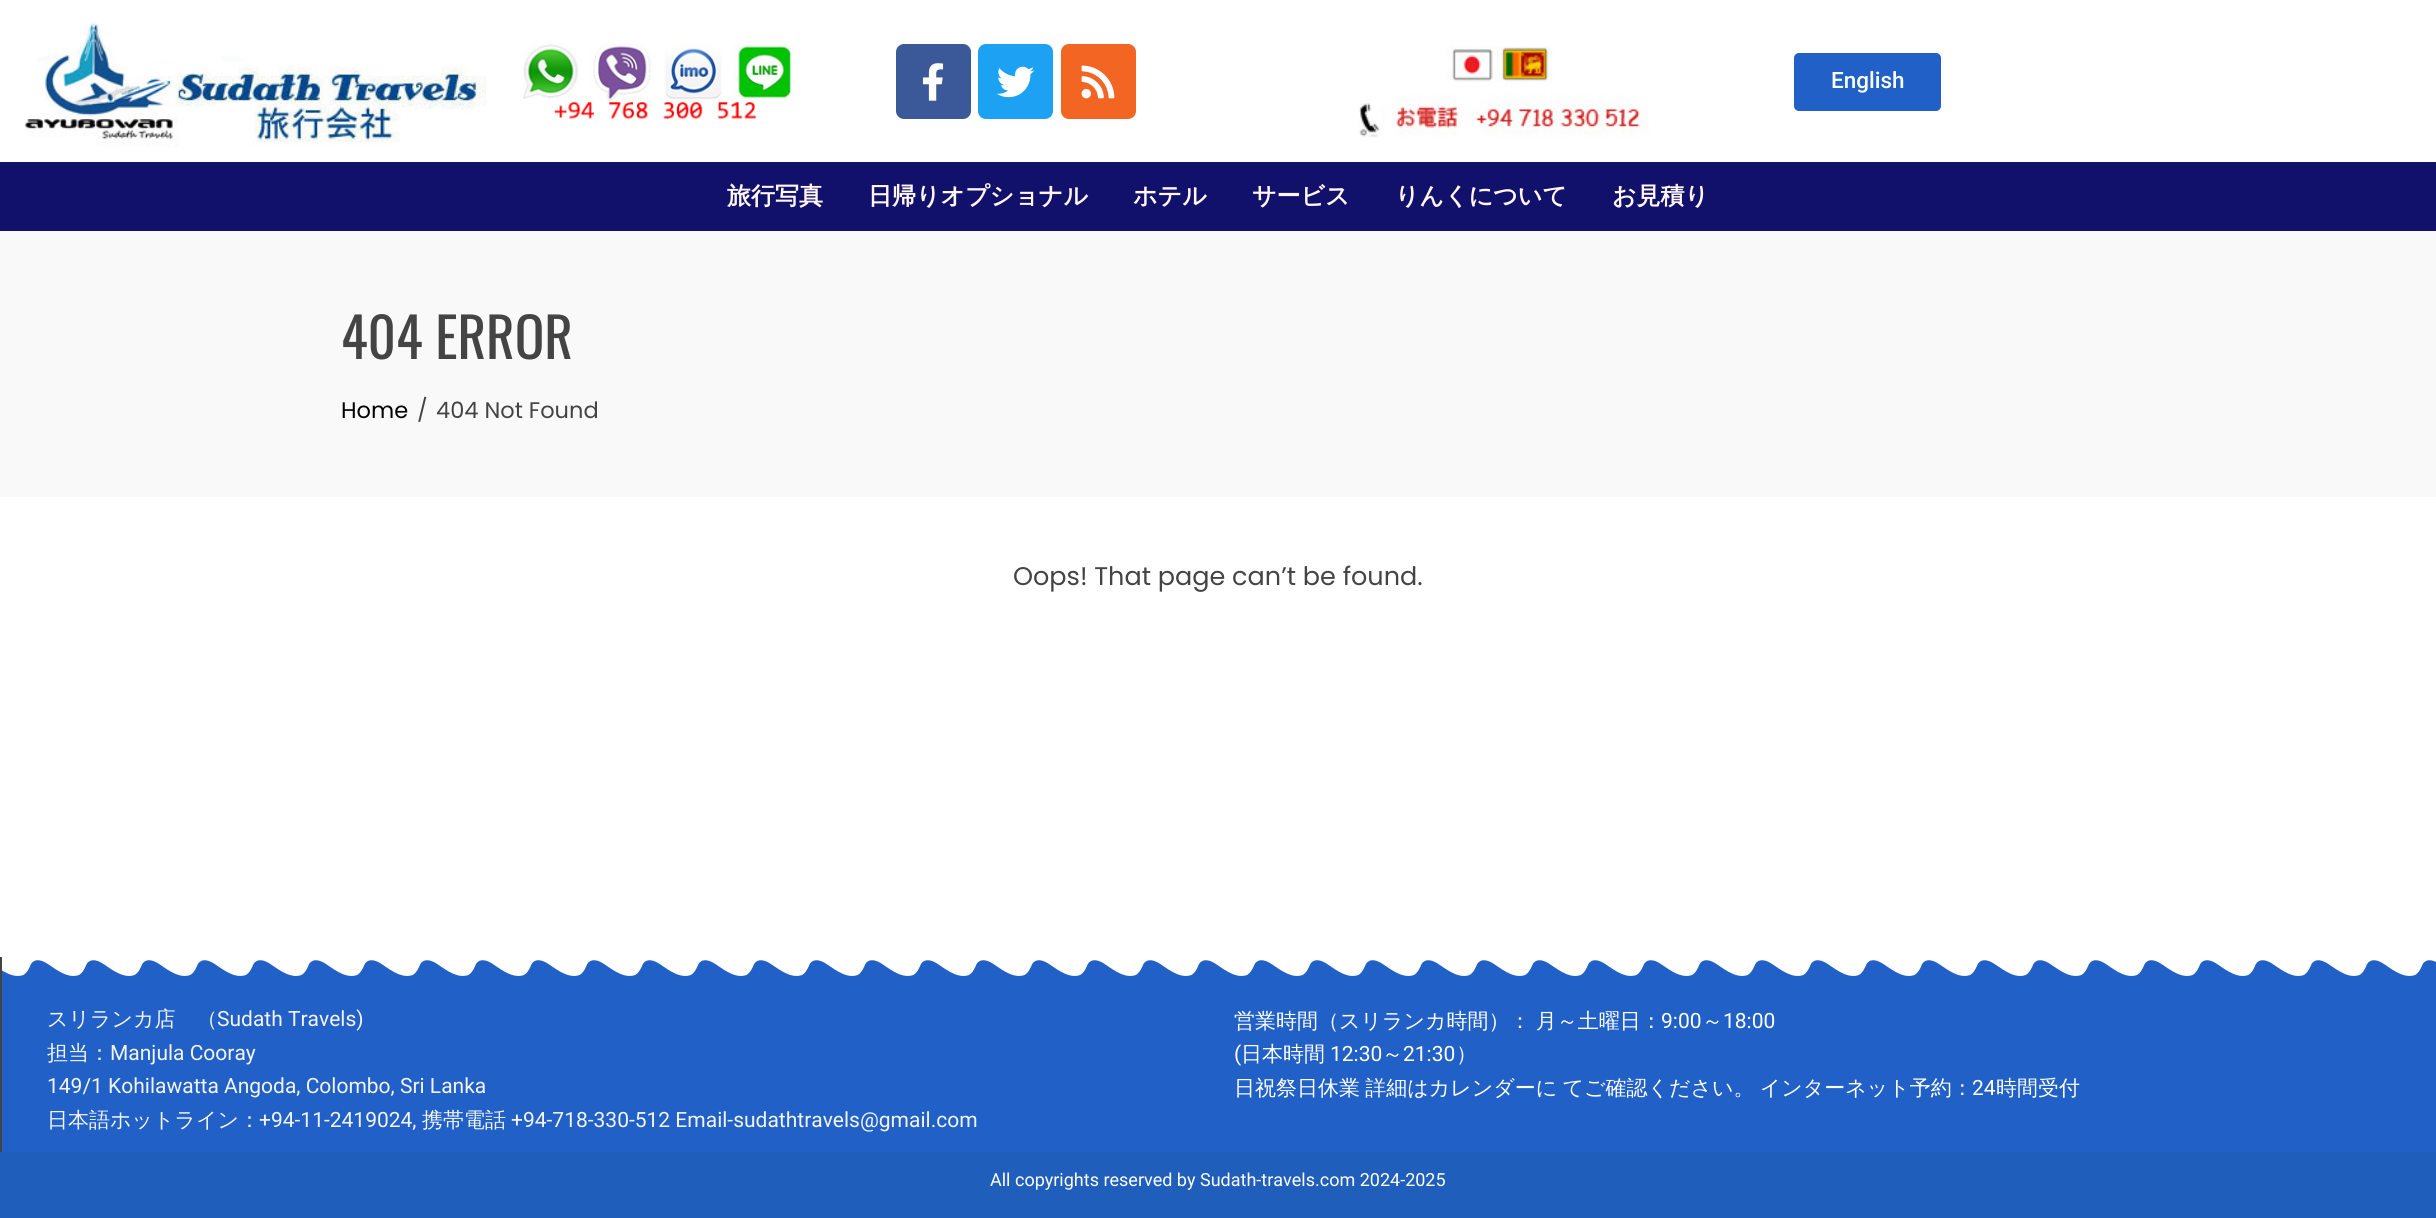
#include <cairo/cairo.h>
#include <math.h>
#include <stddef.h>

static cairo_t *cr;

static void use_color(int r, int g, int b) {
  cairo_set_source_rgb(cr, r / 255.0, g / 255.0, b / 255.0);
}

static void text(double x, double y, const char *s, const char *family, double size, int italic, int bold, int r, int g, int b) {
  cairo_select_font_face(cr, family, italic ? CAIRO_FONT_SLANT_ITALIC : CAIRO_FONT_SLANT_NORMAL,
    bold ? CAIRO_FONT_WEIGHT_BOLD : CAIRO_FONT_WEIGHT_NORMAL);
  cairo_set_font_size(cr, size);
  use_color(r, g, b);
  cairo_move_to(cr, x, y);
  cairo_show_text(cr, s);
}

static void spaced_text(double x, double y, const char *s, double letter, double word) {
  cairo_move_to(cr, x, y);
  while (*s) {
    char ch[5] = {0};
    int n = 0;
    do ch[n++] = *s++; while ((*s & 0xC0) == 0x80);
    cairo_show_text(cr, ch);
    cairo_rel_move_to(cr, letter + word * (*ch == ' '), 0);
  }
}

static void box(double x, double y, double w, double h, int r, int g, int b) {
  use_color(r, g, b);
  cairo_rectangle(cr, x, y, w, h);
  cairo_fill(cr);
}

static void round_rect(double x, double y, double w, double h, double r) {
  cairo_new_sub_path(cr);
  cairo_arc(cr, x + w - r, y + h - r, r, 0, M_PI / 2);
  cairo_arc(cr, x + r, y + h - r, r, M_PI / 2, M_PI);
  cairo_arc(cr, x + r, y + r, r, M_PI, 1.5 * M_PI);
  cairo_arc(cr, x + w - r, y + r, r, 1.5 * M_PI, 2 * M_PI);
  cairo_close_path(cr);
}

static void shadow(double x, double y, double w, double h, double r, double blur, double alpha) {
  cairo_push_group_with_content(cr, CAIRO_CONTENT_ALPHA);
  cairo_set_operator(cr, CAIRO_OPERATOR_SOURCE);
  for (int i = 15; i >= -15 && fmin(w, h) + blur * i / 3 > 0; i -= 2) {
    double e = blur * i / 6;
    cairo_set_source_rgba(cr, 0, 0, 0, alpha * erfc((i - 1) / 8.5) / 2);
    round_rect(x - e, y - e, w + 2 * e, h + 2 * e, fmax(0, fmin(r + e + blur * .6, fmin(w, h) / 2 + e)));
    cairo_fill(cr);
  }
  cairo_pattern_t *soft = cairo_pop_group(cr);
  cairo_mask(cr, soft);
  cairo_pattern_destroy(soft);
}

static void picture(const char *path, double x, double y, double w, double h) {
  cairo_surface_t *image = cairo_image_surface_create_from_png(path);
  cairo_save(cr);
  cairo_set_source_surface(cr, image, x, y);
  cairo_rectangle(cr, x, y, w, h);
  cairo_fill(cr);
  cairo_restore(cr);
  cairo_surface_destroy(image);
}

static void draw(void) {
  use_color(255, 255, 255);
  cairo_paint(cr);
  picture("img_01.png", 25, 22, 461, 125);
  picture("img_02.png", 523, 42, 271, 77);
  use_color(59, 89, 152);
  round_rect(896, 44, 75, 75, 8);
  cairo_fill(cr);
  picture("img_03.png", 922, 63, 22, 38);
  use_color(29, 161, 242);
  round_rect(978, 44, 75, 75, 8);
  cairo_fill(cr);
  picture("img_04.png", 997, 66, 38, 32);
  use_color(242, 101, 34);
  round_rect(1061, 44, 75, 75, 8);
  cairo_fill(cr);
  picture("img_05.png", 1081, 65, 34, 34);
  picture("img_06.png", 1358, 46, 291, 92);
  use_color(33, 96, 199);
  round_rect(1794, 53, 147, 58, 5);
  cairo_fill(cr);
  box(0, 162, 2436, 69, 17, 16, 106);
  box(0, 231, 2436, 266, 249, 249, 249);
  box(2, 960, 2434, 192, 33, 96, 199);
  box(0, 957, 2, 195, 68, 68, 68);
  picture("img_07.png", 2, 957, 2434, 19);
  box(0, 1152, 2436, 66, 32, 94, 188);
  cairo_save(cr);
  cairo_rectangle(cr, 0, 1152, 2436, 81);
  cairo_clip(cr);
  cairo_set_fill_rule(cr, CAIRO_FILL_RULE_EVEN_ODD);
  cairo_new_path(cr);
  cairo_move_to(cr, 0, 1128);
  cairo_line_to(cr, 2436, 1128);
  cairo_line_to(cr, 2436, 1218);
  cairo_line_to(cr, 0, 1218);
  cairo_close_path(cr);
  cairo_move_to(cr, 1.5, 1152);
  cairo_line_to(cr, 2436, 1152);
  cairo_line_to(cr, 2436, 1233);
  cairo_line_to(cr, 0, 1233);
  cairo_line_to(cr, 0, 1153.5);
  cairo_curve_to(cr, 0, 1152.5, 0.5, 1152, 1.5, 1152);
  cairo_close_path(cr);
  cairo_clip(cr);
  use_color(0, 0, 0);
  shadow(0, 1152, 2436, 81, 1.5, 7.5, 0.5);
  cairo_restore(cr);
  text(1831, 88, "English", "Roboto Medium", 22.5, 0, 0, 255, 255, 255);
  text(727, 204, "旅行写真", "WenQuanYi Zen Hei", 24, 0, 1, 255, 246, 246);
  text(868, 204, "日帰りオプショナル", "WenQuanYi Zen Hei", 24, 0, 1, 255, 246, 246);
  text(1133, 204, "ホテル", "WenQuanYi Zen Hei", 24, 0, 1, 255, 246, 246);
  text(1252, 204, "サービス", "WenQuanYi Zen Hei", 24, 0, 1, 255, 246, 246);
  text(1395, 204, "りんくについて", "WenQuanYi Zen Hei", 24, 0, 1, 255, 246, 246);
  text(1612, 204, "お見積り", "WenQuanYi Zen Hei", 24, 0, 1, 255, 246, 246);
  text(341, 359, "404 ERROR", "Oswald", 55, 0, 0, 68, 68, 68);
  text(341, 418, "Home", "Poppins", 22.5, 0, 0, 0, 0, 0);
  text(417, 418, "/", "Poppins", 22.5, 0, 0, 68, 68, 68);
  text(436, 418, "404 Not Found", "Poppins", 22.5, 0, 0, 68, 68, 68);
  text(1013, 585, "Oops! That page can’t be found.", "Poppins", 25.5, 0, 0, 68, 68, 68);
  text(47, 1026, "スリランカ店　（", "WenQuanYi Zen Hei Medium", 21, 0, 0, 244, 244, 244);
  text(217, 1026, "Sudath Travels)", "Roboto", 21, 0, 0, 244, 244, 244);
  text(47, 1060, "担当：", "WenQuanYi Zen Hei Medium", 21, 0, 0, 244, 244, 244);
  text(110, 1060, "Manjula Cooray", "Roboto", 21, 0, 0, 244, 244, 244);
  text(47, 1093, "149/1 Kohilawatta Angoda, Colombo, Sri Lanka", "Roboto", 21, 0, 0, 244, 244, 244);
  text(47, 1127, "日本語ホットライン：", "WenQuanYi Zen Hei Medium", 21, 0, 0, 244, 244, 244);
  text(259, 1127, "+94-11-2419024,", "Roboto", 21, 0, 0, 244, 244, 244);
  text(422, 1127, "携帯電話", "WenQuanYi Zen Hei Medium", 21, 0, 0, 244, 244, 244);
  text(511, 1127, "+94-718-330-512 Email-sudathtravels@gmail.com", "Roboto", 21, 0, 0, 244, 244, 244);
  cairo_select_font_face(cr, "WenQuanYi Zen Hei Medium", CAIRO_FONT_SLANT_NORMAL, CAIRO_FONT_WEIGHT_NORMAL);
  use_color(255, 255, 255);
  spaced_text(1234, 1028, "営業時間（スリランカ時間）： 月～土曜日：", 0, -1);
  text(1661, 1028, "9:00", "Roboto", 21, 0, 0, 255, 255, 255);
  text(1702, 1028, "～", "WenQuanYi Zen Hei Medium", 21, 0, 0, 255, 255, 255);
  text(1723, 1028, "18:00", "Roboto", 21, 0, 0, 255, 255, 255);
  text(1234, 1061, "(", "Roboto", 21, 0, 0, 255, 255, 255);
  text(1241, 1061, "日本時間", "WenQuanYi Zen Hei Medium", 21, 0, 0, 255, 255, 255);
  text(1330, 1061, "12:30", "Roboto", 21, 0, 0, 255, 255, 255);
  text(1382, 1061, "～", "WenQuanYi Zen Hei Medium", 21, 0, 0, 255, 255, 255);
  text(1403, 1061, "21:30", "Roboto", 21, 0, 0, 255, 255, 255);
  text(1456, 1061, "）", "WenQuanYi Zen Hei Medium", 21, 0, 0, 255, 255, 255);
  spaced_text(1234, 1095, "日祝祭日休業 詳細はカレンダーに てご確認ください。 インターネット予約：", 0, -1);
  text(1972, 1095, "24", "Roboto", 21, 0, 0, 255, 255, 255);
  text(1996, 1095, "時間受付", "WenQuanYi Zen Hei Medium", 21, 0, 0, 255, 255, 255);
  text(990, 1186, "All copyrights reserved by Sudath-travels.com 2024-2025", "Roboto", 18, 0, 0, 255, 255, 255);
}

int main(void) {
  cairo_surface_t *surface = cairo_image_surface_create(CAIRO_FORMAT_RGB24, 2436, 1218);
  cr = cairo_create(surface);
  cairo_font_options_t *options = cairo_font_options_create();
  cairo_font_options_set_hint_metrics(options, CAIRO_HINT_METRICS_OFF);
  cairo_font_options_set_hint_style(options, CAIRO_HINT_STYLE_NONE);
  cairo_set_font_options(cr, options);
  cairo_set_miter_limit(cr, 4);
  draw();
  cairo_surface_write_to_png(surface, "out.png");
  cairo_font_options_destroy(options);
  cairo_destroy(cr);
  cairo_surface_destroy(surface);
  return 0;
}
